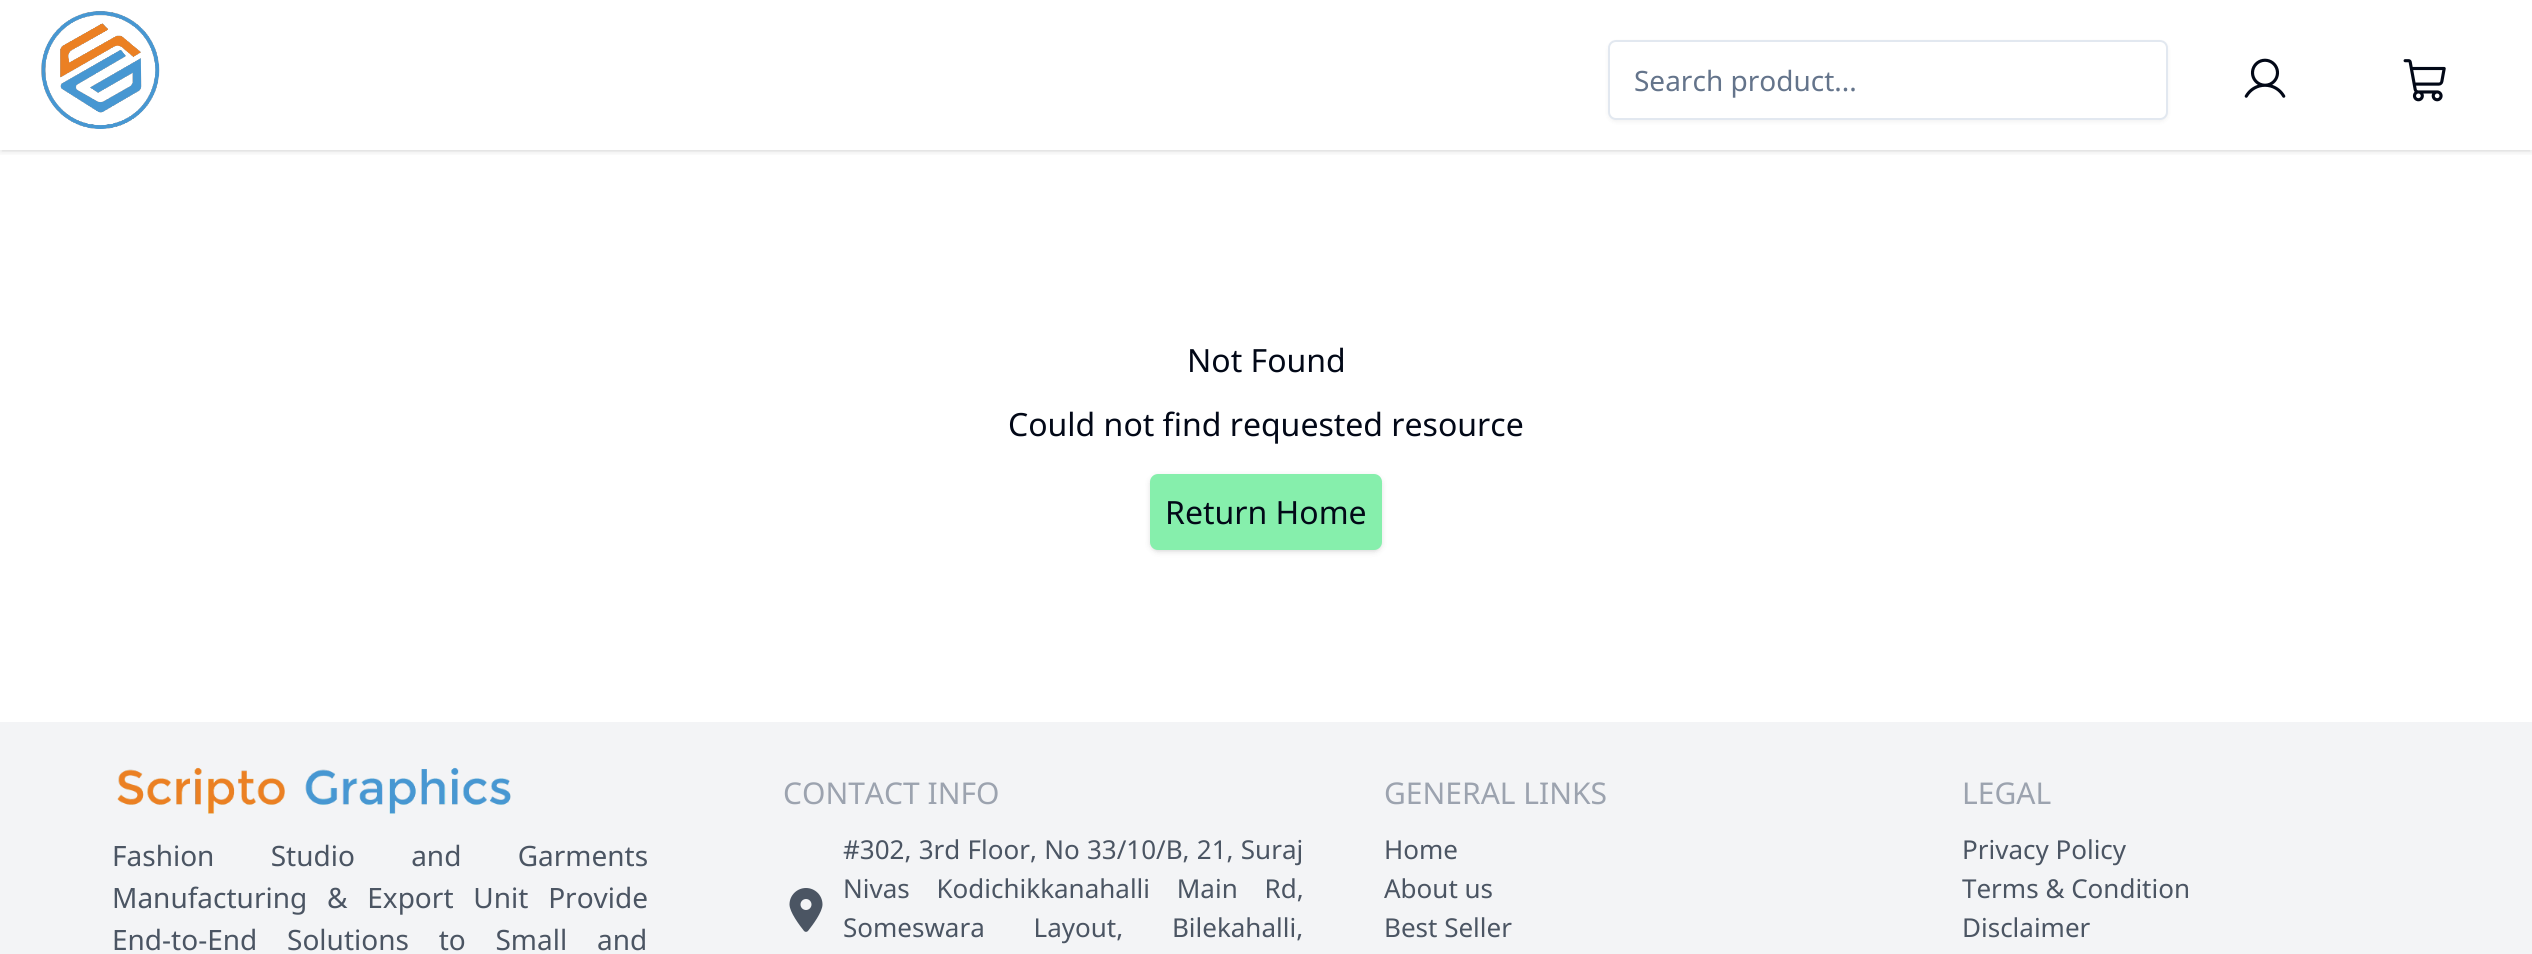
#include <cairo/cairo.h>
#include <math.h>
#include <stddef.h>

static cairo_t *cr;

static void use_color(int r, int g, int b) {
  cairo_set_source_rgb(cr, r / 255.0, g / 255.0, b / 255.0);
}

static void text(double x, double y, const char *s, const char *family, double size, int italic, int bold, int r, int g, int b) {
  cairo_select_font_face(cr, family, italic ? CAIRO_FONT_SLANT_ITALIC : CAIRO_FONT_SLANT_NORMAL,
    bold ? CAIRO_FONT_WEIGHT_BOLD : CAIRO_FONT_WEIGHT_NORMAL);
  cairo_set_font_size(cr, size);
  use_color(r, g, b);
  cairo_move_to(cr, x, y);
  cairo_show_text(cr, s);
}

static void spaced_text(double x, double y, const char *s, double letter, double word) {
  cairo_move_to(cr, x, y);
  while (*s) {
    char ch[5] = {0};
    int n = 0;
    do ch[n++] = *s++; while ((*s & 0xC0) == 0x80);
    cairo_show_text(cr, ch);
    cairo_rel_move_to(cr, letter + word * (*ch == ' '), 0);
  }
}

static void box(double x, double y, double w, double h, int r, int g, int b) {
  use_color(r, g, b);
  cairo_rectangle(cr, x, y, w, h);
  cairo_fill(cr);
}

static void round_rect(double x, double y, double w, double h, double r) {
  cairo_new_sub_path(cr);
  cairo_arc(cr, x + w - r, y + h - r, r, 0, M_PI / 2);
  cairo_arc(cr, x + r, y + h - r, r, M_PI / 2, M_PI);
  cairo_arc(cr, x + r, y + r, r, M_PI, 1.5 * M_PI);
  cairo_arc(cr, x + w - r, y + r, r, 1.5 * M_PI, 2 * M_PI);
  cairo_close_path(cr);
}

static void shadow(double x, double y, double w, double h, double r, double blur, double alpha) {
  cairo_push_group_with_content(cr, CAIRO_CONTENT_ALPHA);
  cairo_set_operator(cr, CAIRO_OPERATOR_SOURCE);
  for (int i = 15; i >= -15 && fmin(w, h) + blur * i / 3 > 0; i -= 2) {
    double e = blur * i / 6;
    cairo_set_source_rgba(cr, 0, 0, 0, alpha * erfc((i - 1) / 8.5) / 2);
    round_rect(x - e, y - e, w + 2 * e, h + 2 * e, fmax(0, fmin(r + e + blur * .6, fmin(w, h) / 2 + e)));
    cairo_fill(cr);
  }
  cairo_pattern_t *soft = cairo_pop_group(cr);
  cairo_mask(cr, soft);
  cairo_pattern_destroy(soft);
}

static void picture(const char *path, double x, double y, double w, double h) {
  cairo_surface_t *image = cairo_image_surface_create_from_png(path);
  cairo_save(cr);
  cairo_set_source_surface(cr, image, x, y);
  cairo_rectangle(cr, x, y, w, h);
  cairo_fill(cr);
  cairo_restore(cr);
  cairo_surface_destroy(image);
}

static void draw(void) {
  use_color(255, 255, 255);
  cairo_paint(cr);
  cairo_save(cr);
  cairo_rectangle(cr, 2, 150, 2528, 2);
  cairo_clip(cr);
  use_color(0, 0, 0);
  shadow(2, 4, 2528, 146, 0, 2, 0.1);
  cairo_restore(cr);
  cairo_save(cr);
  cairo_rectangle(cr, 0, 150, 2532, 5);
  cairo_clip(cr);
  use_color(0, 0, 0);
  shadow(0, 2, 2532, 150, 0, 3, 0.1);
  cairo_restore(cr);
  picture("img_01.png", 41, 11, 119, 118);
  use_color(0, 0, 0);
  shadow(1608, 42, 560, 80, 8, 2, 0.05);
  use_color(255, 255, 255);
  round_rect(1609, 41, 558, 78, 7);
  cairo_fill_preserve(cr);
  use_color(226, 232, 240);
  cairo_stroke(cr);
  picture("img_02.png", 2244, 58, 42, 40);
  picture("img_03.png", 2403, 59, 43, 43);
  use_color(0, 0, 0);
  shadow(1152, 478, 228, 72, 6, 2, 0.1);
  shadow(1150, 476, 232, 76, 8, 3, 0.1);
  use_color(134, 239, 172);
  round_rect(1150, 474, 232, 76, 8);
  cairo_fill(cr);
  box(0, 722, 2532, 232, 243, 244, 246);
  picture("img_04.png", 117, 767, 394, 47);
  picture("img_05.png", 789, 888, 34, 44);
  text(1634, 91, "Search product...", "Noto Sans", 28, 0, 0, 100, 116, 139);
  text(1187, 372, "Not Found", "Noto Sans", 32, 0, 0, 2, 8, 23);
  text(1008, 436, "Could not find requested resource", "Noto Sans", 32, 0, 0, 2, 8, 23);
  text(1165, 524, "Return Home", "Noto Sans", 32, 0, 0, 2, 8, 23);
  cairo_set_font_size(cr, 28);
  use_color(75, 85, 99);
  spaced_text(112, 866, "Fashion Studio and Garments", 0, 49);
  spaced_text(112, 908, "Manufacturing & Export Unit Provide", 0, 12.5);
  spaced_text(112, 950, "End-to-End Solutions to Small and", 0, 22.5);
  text(783, 804, "CONTACT INFO", "Noto Sans", 30, 0, 0, 156, 163, 175);
  cairo_set_font_size(cr, 26);
  use_color(75, 85, 99);
  spaced_text(843, 859, "#302, 3rd Floor, No 33/10/B, 21, Suraj", 0, 0.5);
  spaced_text(843, 898, "Nivas Kodichikkanahalli Main Rd,", 0, 20);
  spaced_text(843, 937, "Someswara Layout, Bilekahalli,", 0, 42);
  text(1384, 804, "GENERAL LINKS", "Noto Sans", 30, 0, 0, 156, 163, 175);
  text(1384, 859, "Home", "Noto Sans", 26, 0, 0, 75, 85, 99);
  text(1384, 898, "About us", "Noto Sans", 26, 0, 0, 75, 85, 99);
  text(1384, 937, "Best Seller", "Noto Sans", 26, 0, 0, 75, 85, 99);
  text(1962, 804, "LEGAL", "Noto Sans", 30, 0, 0, 156, 163, 175);
  text(1962, 859, "Privacy Policy", "Noto Sans", 26, 0, 0, 75, 85, 99);
  text(1962, 898, "Terms & Condition", "Noto Sans", 26, 0, 0, 75, 85, 99);
  text(1962, 937, "Disclaimer", "Noto Sans", 26, 0, 0, 75, 85, 99);
}

int main(void) {
  cairo_surface_t *surface = cairo_image_surface_create(CAIRO_FORMAT_RGB24, 2532, 954);
  cr = cairo_create(surface);
  cairo_font_options_t *options = cairo_font_options_create();
  cairo_font_options_set_hint_metrics(options, CAIRO_HINT_METRICS_OFF);
  cairo_font_options_set_hint_style(options, CAIRO_HINT_STYLE_NONE);
  cairo_set_font_options(cr, options);
  cairo_set_miter_limit(cr, 4);
  draw();
  cairo_surface_write_to_png(surface, "out.png");
  cairo_font_options_destroy(options);
  cairo_destroy(cr);
  cairo_surface_destroy(surface);
  return 0;
}
